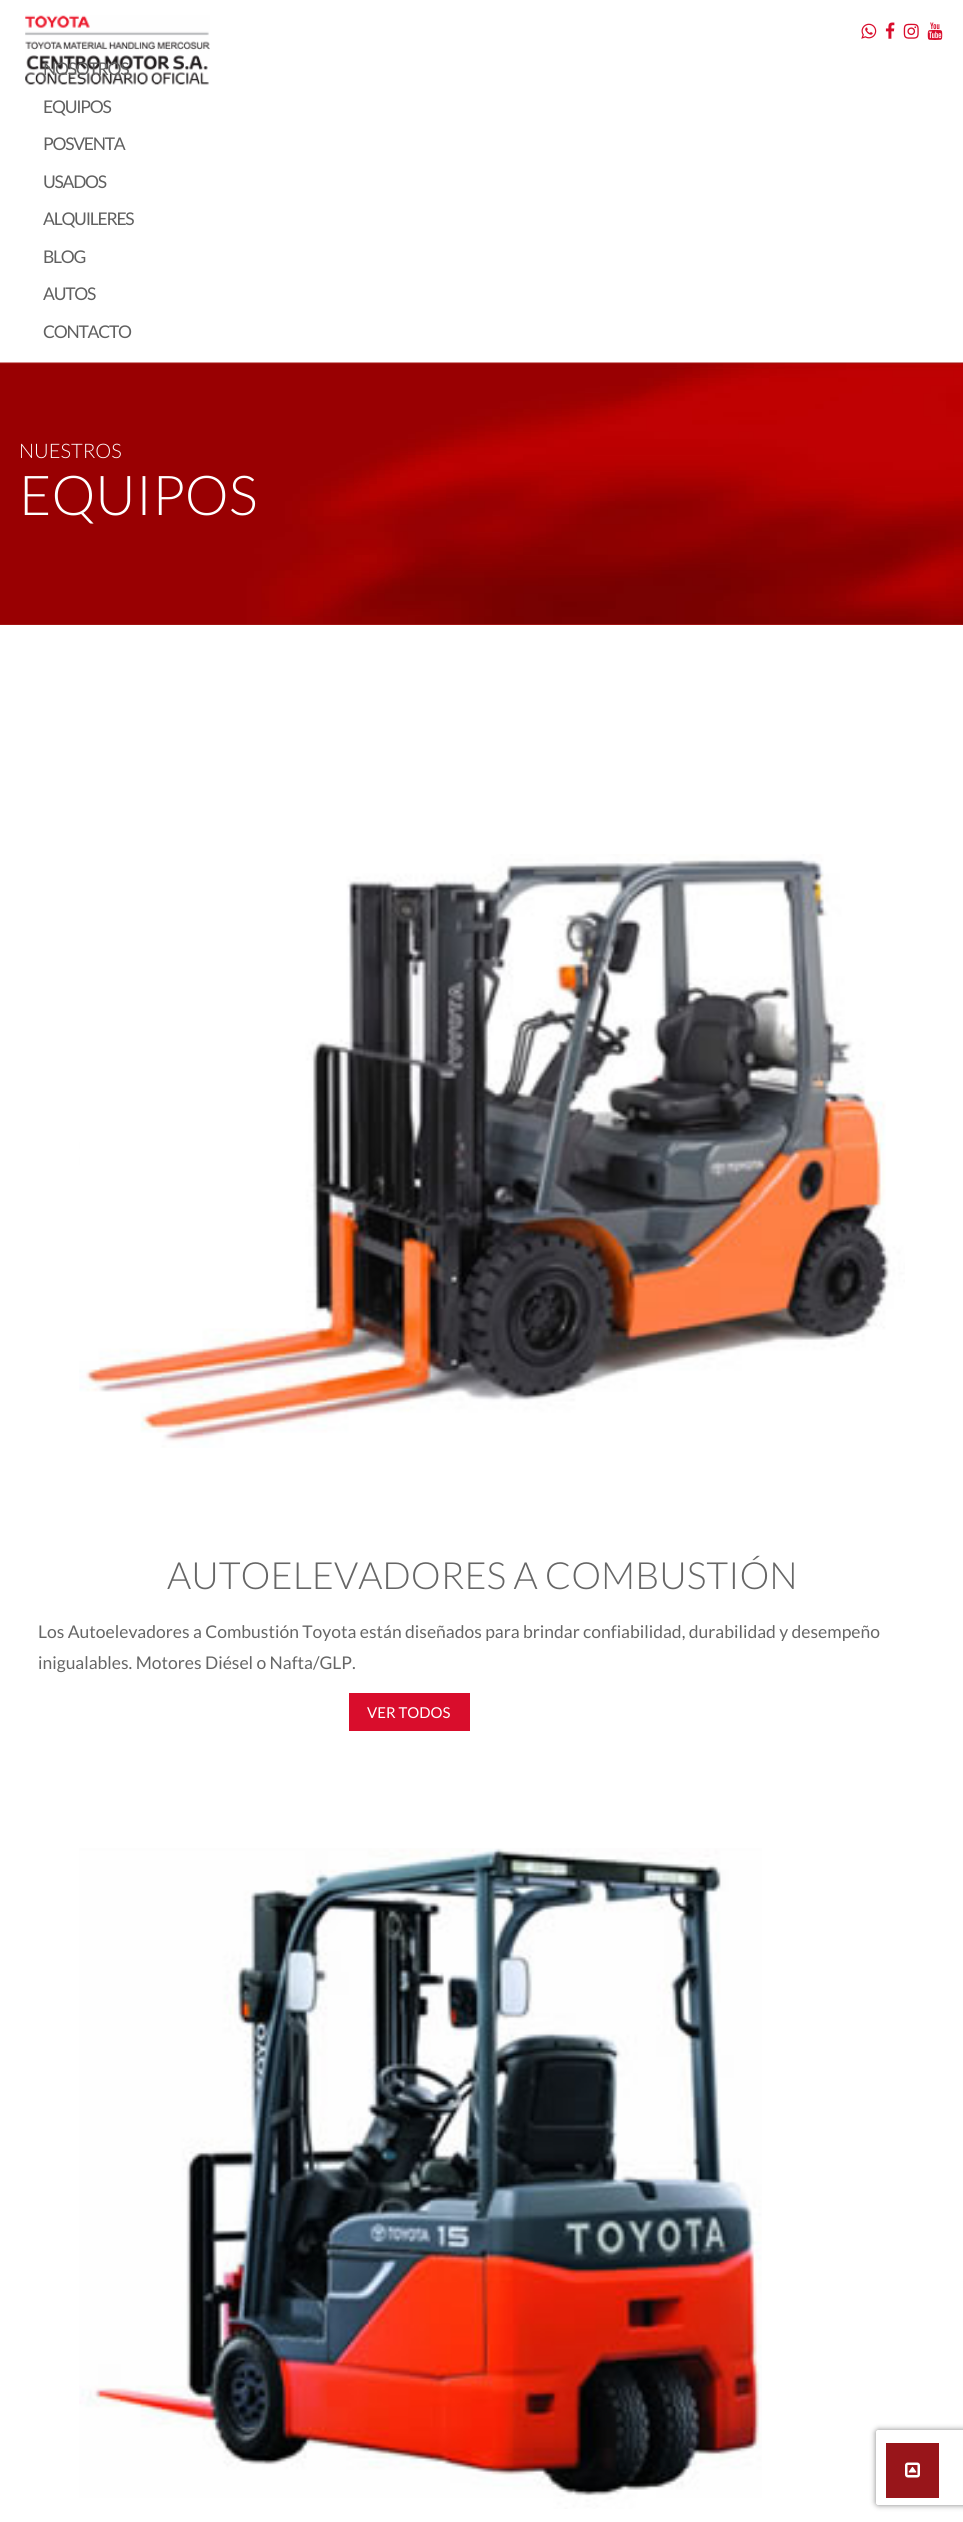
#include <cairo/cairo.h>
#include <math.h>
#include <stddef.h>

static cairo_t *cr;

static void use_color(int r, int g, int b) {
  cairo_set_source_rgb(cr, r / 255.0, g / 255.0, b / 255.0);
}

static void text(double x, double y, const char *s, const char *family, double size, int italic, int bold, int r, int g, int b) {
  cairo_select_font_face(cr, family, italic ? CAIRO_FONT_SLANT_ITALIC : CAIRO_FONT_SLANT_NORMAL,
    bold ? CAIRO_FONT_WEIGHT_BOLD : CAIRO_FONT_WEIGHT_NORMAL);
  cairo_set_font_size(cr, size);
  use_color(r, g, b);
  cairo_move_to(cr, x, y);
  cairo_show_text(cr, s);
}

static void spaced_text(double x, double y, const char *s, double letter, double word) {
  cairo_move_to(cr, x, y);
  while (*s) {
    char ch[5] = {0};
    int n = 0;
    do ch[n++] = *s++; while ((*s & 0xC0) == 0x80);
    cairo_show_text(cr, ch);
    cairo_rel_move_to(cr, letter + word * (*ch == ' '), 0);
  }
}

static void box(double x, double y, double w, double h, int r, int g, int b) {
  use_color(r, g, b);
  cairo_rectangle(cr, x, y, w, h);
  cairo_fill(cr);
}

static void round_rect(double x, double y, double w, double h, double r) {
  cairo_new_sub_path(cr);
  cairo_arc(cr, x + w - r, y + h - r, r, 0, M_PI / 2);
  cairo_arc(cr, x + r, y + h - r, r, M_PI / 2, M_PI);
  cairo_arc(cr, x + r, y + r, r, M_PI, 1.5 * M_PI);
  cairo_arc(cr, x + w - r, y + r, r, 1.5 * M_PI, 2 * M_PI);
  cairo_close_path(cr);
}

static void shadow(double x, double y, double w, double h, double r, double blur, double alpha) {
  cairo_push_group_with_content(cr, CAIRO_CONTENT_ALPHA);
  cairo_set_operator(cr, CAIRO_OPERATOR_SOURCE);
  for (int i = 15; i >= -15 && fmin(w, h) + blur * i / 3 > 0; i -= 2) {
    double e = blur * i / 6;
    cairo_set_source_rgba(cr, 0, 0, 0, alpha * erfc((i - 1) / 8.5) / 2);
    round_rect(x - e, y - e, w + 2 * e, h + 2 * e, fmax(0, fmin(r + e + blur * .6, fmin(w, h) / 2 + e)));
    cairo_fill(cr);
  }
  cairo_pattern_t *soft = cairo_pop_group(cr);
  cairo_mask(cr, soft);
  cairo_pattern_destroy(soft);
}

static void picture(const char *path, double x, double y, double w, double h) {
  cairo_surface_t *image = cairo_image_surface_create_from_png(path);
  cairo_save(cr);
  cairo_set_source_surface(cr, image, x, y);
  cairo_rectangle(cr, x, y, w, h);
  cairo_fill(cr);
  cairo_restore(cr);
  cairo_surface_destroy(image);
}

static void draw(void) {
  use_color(255, 255, 255);
  cairo_paint(cr);
  picture("img_01.png", 25, 15, 185, 70);
  picture("img_02.png", 861, 23, 16, 16);
  picture("img_03.png", 885, 22, 10, 17);
  picture("img_04.png", 903, 23, 16, 16);
  picture("img_05.png", 927, 22, 16, 18);
  picture("img_06.png", 0, 362, 963, 263);
  picture("img_07.png", 79, 854, 826, 594);
  box(349, 1693, 121, 38, 217, 13, 44);
  picture("img_08.png", 79, 1848, 683, 661);
  box(886, 2443, 53, 55, 152, 21, 26);
  picture("img_09.png", 905, 2462, 15, 16);
  cairo_save(cr);
  cairo_set_fill_rule(cr, CAIRO_FILL_RULE_EVEN_ODD);
  cairo_new_path(cr);
  cairo_move_to(cr, 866, 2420);
  cairo_line_to(cr, 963, 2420);
  cairo_line_to(cr, 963, 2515);
  cairo_line_to(cr, 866, 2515);
  cairo_close_path(cr);
  cairo_move_to(cr, 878.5, 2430);
  cairo_line_to(cr, 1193.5, 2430);
  cairo_curve_to(cr, 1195, 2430, 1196, 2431, 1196, 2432.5);
  cairo_line_to(cr, 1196, 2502.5);
  cairo_curve_to(cr, 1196, 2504, 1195, 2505, 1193.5, 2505);
  cairo_line_to(cr, 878.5, 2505);
  cairo_curve_to(cr, 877, 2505, 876, 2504, 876, 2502.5);
  cairo_line_to(cr, 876, 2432.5);
  cairo_curve_to(cr, 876, 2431, 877, 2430, 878.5, 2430);
  cairo_close_path(cr);
  cairo_clip(cr);
  use_color(128, 128, 128);
  shadow(876, 2430, 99, 75, 2.5, 3, 1);
  cairo_restore(cr);
  cairo_select_font_face(cr, "Lato", CAIRO_FONT_SLANT_NORMAL, CAIRO_FONT_WEIGHT_NORMAL);
  cairo_set_font_size(cr, 17.5);
  use_color(96, 96, 96);
  spaced_text(43, 75, "NOSOTROS", -1.25, 0);
  spaced_text(43, 113, "EQUIPOS", -1.25, 0);
  spaced_text(43, 150, "POSVENTA", -1.25, 0);
  spaced_text(43, 188, "USADOS", -1.25, 0);
  spaced_text(43, 225, "ALQUILERES", -1.25, 0);
  spaced_text(43, 263, "BLOG", -1.25, 0);
  spaced_text(43, 300, "AUTOS", -1.25, 0);
  spaced_text(43, 338, "CONTACTO", -1.25, 0);
  text(19, 458, "NUESTROS", "Lato Light", 20, 0, 0, 255, 255, 255);
  text(19, 515, "EQUIPOS", "Lato Light", 55, 0, 0, 255, 255, 255);
  text(167, 1589, "AUTOELEVADORES A COMBUSTIÓN", "Lato Light", 37.5, 0, 0, 102, 102, 102);
  text(38, 1638, "Los Autoelevadores a Combustión Toyota están diseñados para brindar confiabilidad, durabilidad y desempeño", "Lato", 17.5, 0, 0, 102, 102, 102);
  text(38, 1669, "inigualables. Motores Diésel o Nafta/GLP.", "Lato", 17.5, 0, 0, 102, 102, 102);
  text(367, 1718, "VER TODOS", "Lato", 15, 0, 0, 255, 255, 255);
}

int main(void) {
  cairo_surface_t *surface = cairo_image_surface_create(CAIRO_FORMAT_RGB24, 963, 2522);
  cr = cairo_create(surface);
  cairo_font_options_t *options = cairo_font_options_create();
  cairo_font_options_set_hint_metrics(options, CAIRO_HINT_METRICS_OFF);
  cairo_font_options_set_hint_style(options, CAIRO_HINT_STYLE_NONE);
  cairo_set_font_options(cr, options);
  cairo_set_miter_limit(cr, 4);
  draw();
  cairo_surface_write_to_png(surface, "out.png");
  cairo_font_options_destroy(options);
  cairo_destroy(cr);
  cairo_surface_destroy(surface);
  return 0;
}
